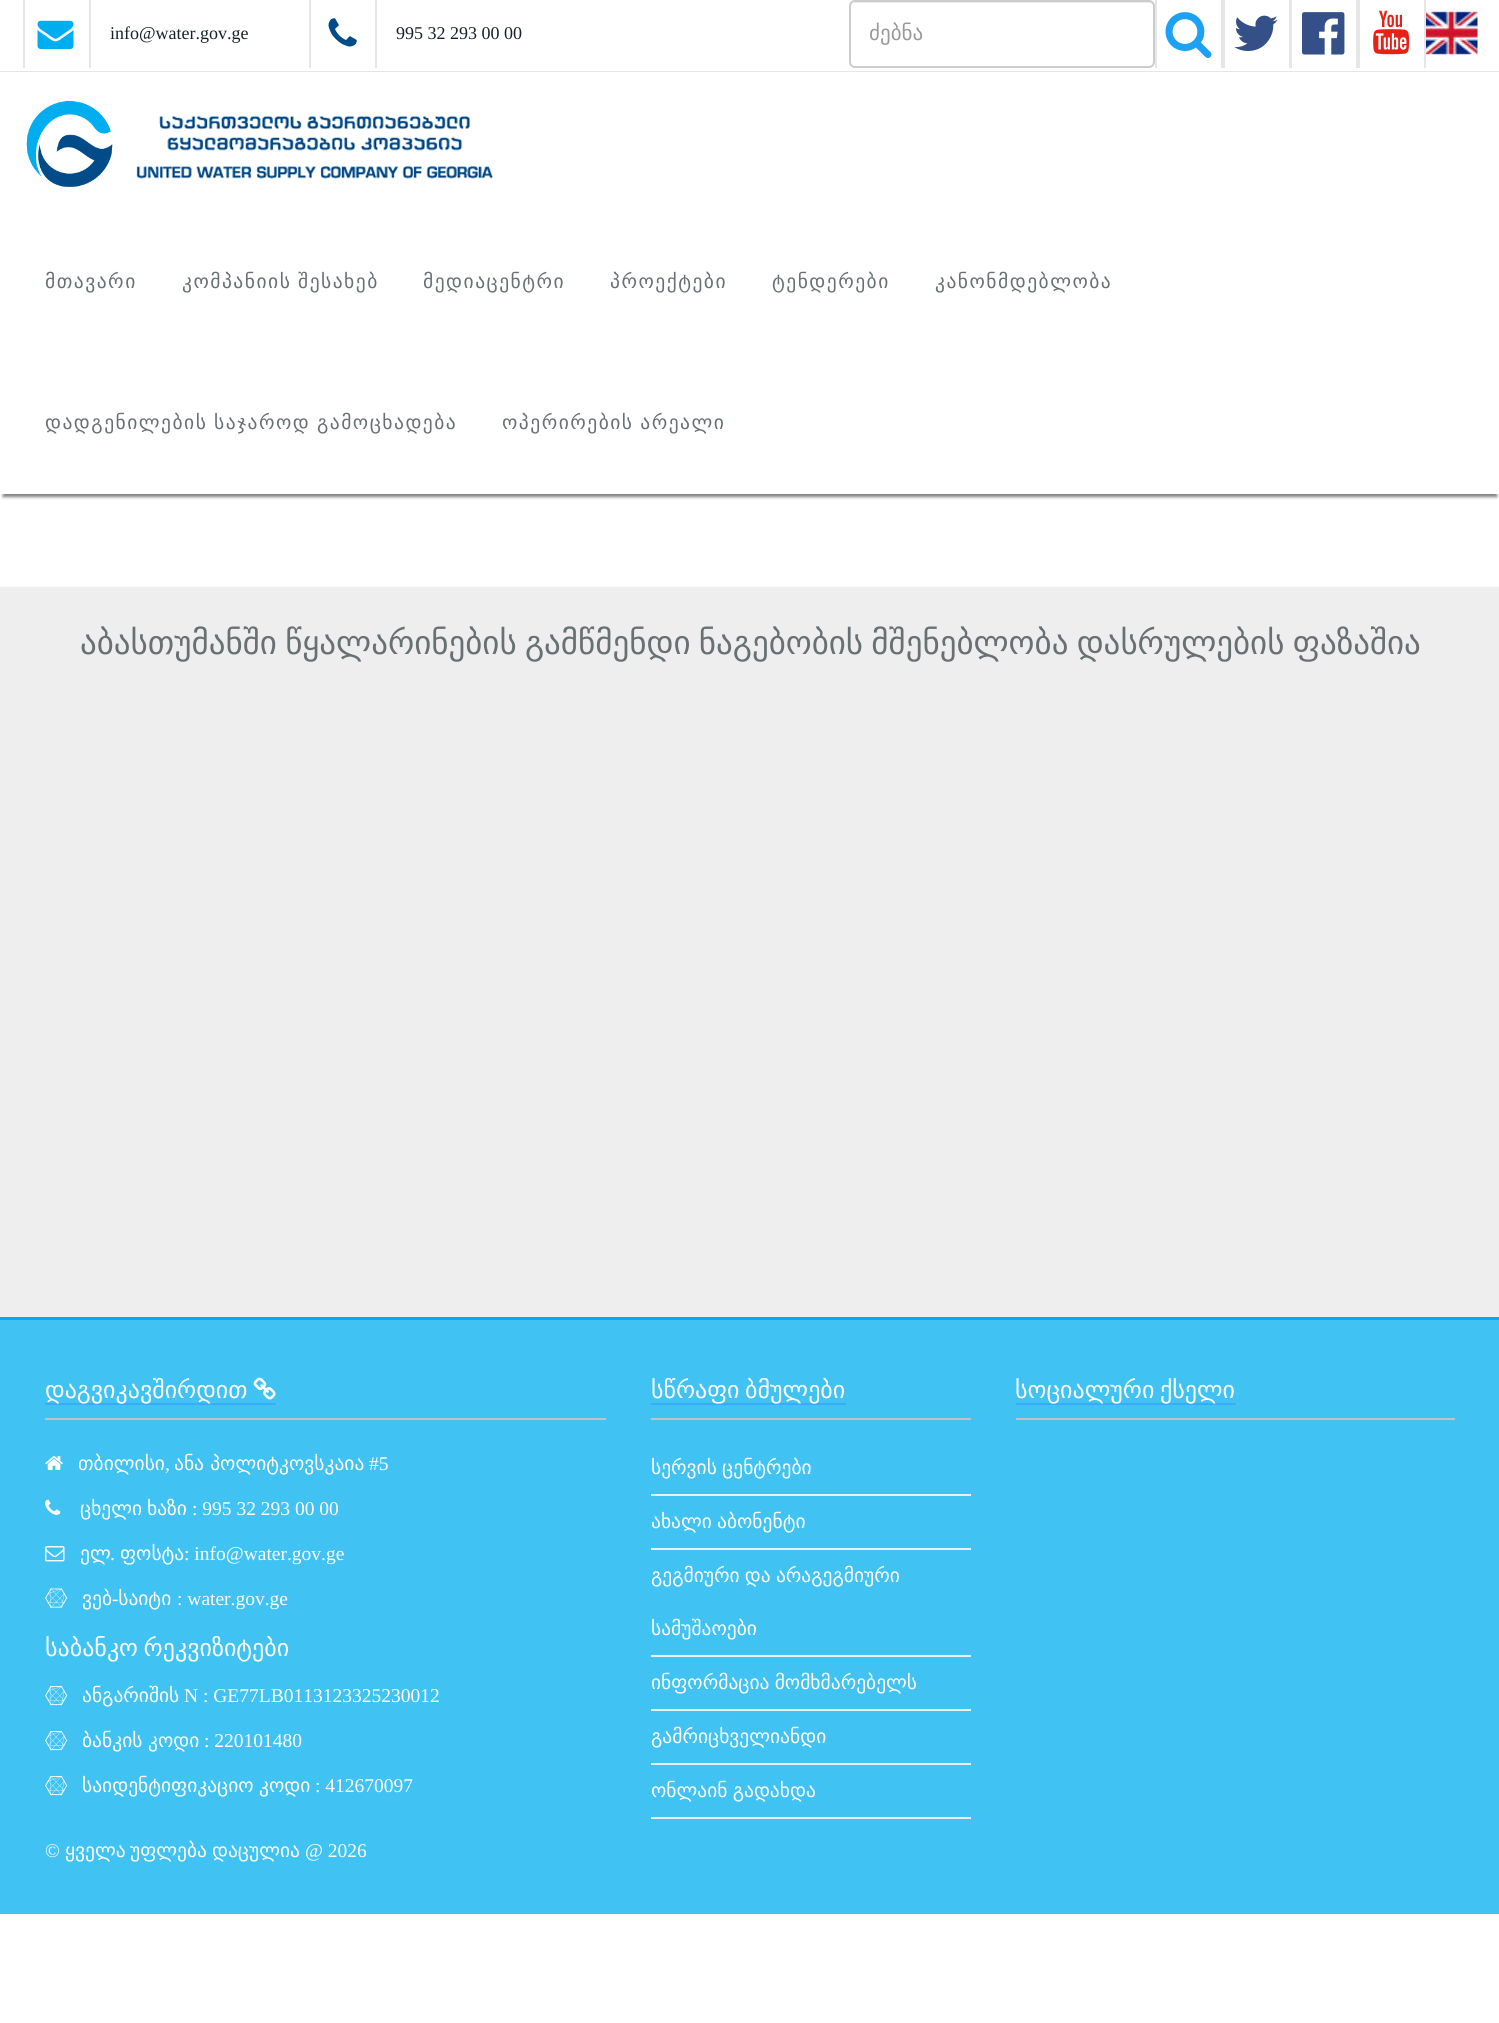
#include <cairo/cairo.h>
#include <math.h>
#include <stddef.h>

static cairo_t *cr;

static void use_color(int r, int g, int b) {
  cairo_set_source_rgb(cr, r / 255.0, g / 255.0, b / 255.0);
}

static void text(double x, double y, const char *s, const char *family, double size, int italic, int bold, int r, int g, int b) {
  cairo_select_font_face(cr, family, italic ? CAIRO_FONT_SLANT_ITALIC : CAIRO_FONT_SLANT_NORMAL,
    bold ? CAIRO_FONT_WEIGHT_BOLD : CAIRO_FONT_WEIGHT_NORMAL);
  cairo_set_font_size(cr, size);
  use_color(r, g, b);
  cairo_move_to(cr, x, y);
  cairo_show_text(cr, s);
}

static void spaced_text(double x, double y, const char *s, double letter, double word) {
  cairo_move_to(cr, x, y);
  while (*s) {
    char ch[5] = {0};
    int n = 0;
    do ch[n++] = *s++; while ((*s & 0xC0) == 0x80);
    cairo_show_text(cr, ch);
    cairo_rel_move_to(cr, letter + word * (*ch == ' '), 0);
  }
}

static void box(double x, double y, double w, double h, int r, int g, int b) {
  use_color(r, g, b);
  cairo_rectangle(cr, x, y, w, h);
  cairo_fill(cr);
}

static void round_rect(double x, double y, double w, double h, double r) {
  cairo_new_sub_path(cr);
  cairo_arc(cr, x + w - r, y + h - r, r, 0, M_PI / 2);
  cairo_arc(cr, x + r, y + h - r, r, M_PI / 2, M_PI);
  cairo_arc(cr, x + r, y + r, r, M_PI, 1.5 * M_PI);
  cairo_arc(cr, x + w - r, y + r, r, 1.5 * M_PI, 2 * M_PI);
  cairo_close_path(cr);
}

static void shadow(double x, double y, double w, double h, double r, double blur, double alpha) {
  cairo_push_group_with_content(cr, CAIRO_CONTENT_ALPHA);
  cairo_set_operator(cr, CAIRO_OPERATOR_SOURCE);
  for (int i = 15; i >= -15 && fmin(w, h) + blur * i / 3 > 0; i -= 2) {
    double e = blur * i / 6;
    cairo_set_source_rgba(cr, 0, 0, 0, alpha * erfc((i - 1) / 8.5) / 2);
    round_rect(x - e, y - e, w + 2 * e, h + 2 * e, fmax(0, fmin(r + e + blur * .6, fmin(w, h) / 2 + e)));
    cairo_fill(cr);
  }
  cairo_pattern_t *soft = cairo_pop_group(cr);
  cairo_mask(cr, soft);
  cairo_pattern_destroy(soft);
}

static void picture(const char *path, double x, double y, double w, double h) {
  cairo_surface_t *image = cairo_image_surface_create_from_png(path);
  cairo_save(cr);
  cairo_set_source_surface(cr, image, x, y);
  cairo_rectangle(cr, x, y, w, h);
  cairo_fill(cr);
  cairo_restore(cr);
  cairo_surface_destroy(image);
}

static void draw(void) {
  use_color(255, 255, 255);
  cairo_paint(cr);
  box(0, 71, 1499, 1, 230, 230, 230);
  box(89, 0, 2, 68, 230, 230, 230);
  box(23, 0, 2, 68, 230, 230, 230);
  picture("img_01.png", 37, 20, 37, 30);
  box(375, 0, 2, 68, 230, 230, 230);
  box(309, 0, 2, 68, 230, 230, 230);
  picture("img_02.png", 328, 18, 29, 29);
  use_color(236, 236, 236);
  cairo_new_path(cr);
  cairo_move_to(cr, 855, 3);
  cairo_line_to(cr, 1149, 3);
  cairo_curve_to(cr, 1151, 3, 1154, 5, 1154, 8);
  cairo_line_to(cr, 1154, 7);
  cairo_curve_to(cr, 1154, 4, 1152, 2, 1149, 2);
  cairo_line_to(cr, 856, 2);
  cairo_curve_to(cr, 854, 2, 853, 3, 852, 4);
  cairo_close_path(cr);
  cairo_fill(cr);
  round_rect(850, 1, 304, 66, 5);
  use_color(204, 204, 204);
  cairo_stroke(cr);
  box(1155, 0, 2, 68, 230, 230, 230);
  picture("img_03.png", 1165, 12, 47, 46);
  box(1221, 0, 4, 68, 230, 230, 230);
  picture("img_04.png", 1234, 15, 44, 36);
  box(1289, 0, 3, 68, 230, 230, 230);
  picture("img_05.png", 1302, 12, 43, 43);
  box(1424, 0, 2, 68, 230, 230, 230);
  box(1356, 0, 4, 68, 230, 230, 230);
  picture("img_06.png", 1373, 10, 37, 45);
  picture("img_07.png", 1426, 7, 52, 49);
  use_color(128, 128, 128);
  shadow(3, 81, 1494, 416, 0, 1.5, 1);
  box(0, 78, 1499, 416, 255, 255, 255);
  picture("img_08.png", 26, 101, 467, 86);
  box(0, 587, 1499, 730, 238, 238, 238);
  box(0, 1317, 1499, 3, 0, 174, 239);
  box(0, 1320, 1499, 594, 64, 194, 243);
  box(45, 1418, 561, 2, 195, 195, 195);
  box(45, 1403, 231, 2, 59, 170, 254);
  picture("img_09.png", 253, 1377, 23, 23);
  picture("img_10.png", 45, 1456, 18, 14);
  picture("img_11.png", 45, 1499, 16, 16);
  picture("img_12.png", 45, 1546, 20, 16);
  picture("img_13.png", 45, 1588, 23, 20);
  picture("img_14.png", 45, 1685, 23, 21);
  picture("img_14.png", 45, 1730, 23, 21);
  picture("img_14.png", 45, 1775, 23, 21);
  box(651, 1418, 320, 2, 195, 195, 195);
  box(651, 1403, 195, 2, 59, 170, 254);
  box(651, 1494, 320, 2, 239, 239, 239);
  box(651, 1548, 320, 2, 239, 239, 239);
  box(651, 1655, 320, 2, 239, 239, 239);
  box(651, 1709, 320, 2, 239, 239, 239);
  box(651, 1763, 320, 2, 239, 239, 239);
  box(651, 1817, 320, 2, 239, 239, 239);
  box(1016, 1418, 439, 2, 195, 195, 195);
  box(1016, 1403, 220, 2, 59, 170, 254);
  text(110, 39, "info@water.gov.ge", "Liberation Serif", 18, 0, 0, 23, 33, 44);
  text(396, 39, "995 32 293 00 00", "Liberation Serif", 18, 0, 0, 23, 33, 44);
  text(869, 40, "ძებნა", "DejaVu Sans", 21, 0, 0, 153, 153, 153);
  cairo_set_font_size(cr, 19.5);
  use_color(104, 112, 116);
  spaced_text(45, 288, "მთავარი", 1.5, 0);
  spaced_text(182, 288, "კომპანიის შესახებ", 1.5, -1);
  spaced_text(423, 288, "მედიაცენტრი", 1.5, 0);
  spaced_text(610, 288, "პროექტები", 1.5, 0);
  spaced_text(772, 288, "ტენდერები", 1.5, 0);
  spaced_text(935, 288, "კანონმდებლობა", 1.5, 0);
  spaced_text(45, 429, "დადგენილების საჯაროდ გამოცხადება", 1.5, -1);
  spaced_text(502, 429, "ოპერირების არეალი", 1.5, -1);
  cairo_set_font_size(cr, 33);
  spaced_text(80, 654, "აბასთუმანში წყალარინების გამწმენდი ნაგებობის მშენებლობა დასრულების ფაზაშია", 0, -2.25);
  text(45, 1398, "დაგვიკავშირდით", "DejaVu Sans", 24, 0, 0, 255, 255, 255);
  text(78, 1470, "თბილისი", "DejaVu Sans", 19.5, 0, 0, 255, 255, 255);
  text(165, 1470, ",", "Liberation Serif", 19.5, 0, 0, 255, 255, 255);
  text(174, 1470, "ანა პოლიტკოვსკაია", "DejaVu Sans", 19.5, 0, 0, 255, 255, 255);
  text(369, 1470, "#5", "Liberation Serif", 19.5, 0, 0, 255, 255, 255);
  text(80, 1515, "ცხელი", "DejaVu Sans", 19.5, 0, 0, 255, 255, 255);
  text(147, 1515, "ხაზი", "DejaVu Sans", 19.5, 0, 0, 255, 255, 255);
  text(192, 1515, ": 995 32 293 00 00", "Liberation Serif", 19.5, 0, 0, 255, 255, 255);
  text(80, 1560, "ელ", "DejaVu Sans", 19.5, 0, 0, 255, 255, 255);
  text(110, 1560, ".", "Liberation Serif", 19.5, 0, 0, 255, 255, 255);
  text(120, 1560, "ფოსტა", "DejaVu Sans", 19.5, 0, 0, 255, 255, 255);
  text(184, 1560, ": info@water.gov.ge", "Liberation Serif", 19.5, 0, 0, 255, 255, 255);
  text(82, 1605, "ვებ საიტი", "DejaVu Sans", 19.5, 0, 0, 255, 255, 255);
  text(177, 1605, ": water.gov.ge", "Liberation Serif", 19.5, 0, 0, 255, 255, 255);
  text(112, 1605, "-", "Liberation Serif", 19.5, 0, 0, 255, 255, 255);
  cairo_select_font_face(cr, "DejaVu Sans", CAIRO_FONT_SLANT_NORMAL, CAIRO_FONT_WEIGHT_NORMAL);
  cairo_set_font_size(cr, 24);
  spaced_text(45, 1656, "საბანკო რეკვიზიტები", 0, -2);
  text(82, 1702, "ანგარიშის", "DejaVu Sans", 19.5, 0, 0, 255, 255, 255);
  text(184, 1702, "N : GE77LB0113123325230012", "Liberation Serif", 19.5, 0, 0, 255, 255, 255);
  text(82, 1747, "ბანკის", "DejaVu Sans", 19.5, 0, 0, 255, 255, 255);
  text(148, 1747, "კოდი", "DejaVu Sans", 19.5, 0, 0, 255, 255, 255);
  text(204, 1747, ": 220101480", "Liberation Serif", 19.5, 0, 0, 255, 255, 255);
  text(82, 1792, "საიდენტიფიკაციო", "DejaVu Sans", 19.5, 0, 0, 255, 255, 255);
  text(259, 1792, "კოდი", "DejaVu Sans", 19.5, 0, 0, 255, 255, 255);
  text(315, 1792, ": 412670097", "Liberation Serif", 19.5, 0, 0, 255, 255, 255);
  text(45, 1857, "©", "Liberation Serif", 19.5, 0, 0, 255, 255, 255);
  text(65, 1857, "ყველა", "DejaVu Sans", 19.5, 0, 0, 255, 255, 255);
  text(130, 1857, "უფლება", "DejaVu Sans", 19.5, 0, 0, 255, 255, 255);
  text(212, 1857, "დაცულია", "DejaVu Sans", 19.5, 0, 0, 255, 255, 255);
  text(305, 1857, "@ 2026", "Liberation Serif", 19.5, 0, 0, 255, 255, 255);
  cairo_select_font_face(cr, "DejaVu Sans", CAIRO_FONT_SLANT_NORMAL, CAIRO_FONT_WEIGHT_NORMAL);
  cairo_set_font_size(cr, 24);
  spaced_text(651, 1398, "სწრაფი ბმულები", 0, -2);
  cairo_set_font_size(cr, 19.5);
  spaced_text(651, 1474, "სერვის ცენტრები", 0, -1);
  spaced_text(651, 1528, "ახალი აბონენტი", 0, -1);
  spaced_text(651, 1582, "გეგმიური და არაგეგმიური", 0, -1);
  text(651, 1635, "სამუშაოები", "DejaVu Sans", 19.5, 0, 0, 255, 255, 255);
  spaced_text(651, 1689, "ინფორმაცია მომხმარებელს", 0, -1);
  text(651, 1743, "გამრიცხველიანდი", "DejaVu Sans", 19.5, 0, 0, 255, 255, 255);
  spaced_text(651, 1797, "ონლაინ გადახდა", 0, -1);
  cairo_set_font_size(cr, 24);
  spaced_text(1015, 1398, "სოციალური ქსელი", 0, -2);
}

int main(void) {
  cairo_surface_t *surface = cairo_image_surface_create(CAIRO_FORMAT_RGB24, 1499, 2023);
  cr = cairo_create(surface);
  cairo_font_options_t *options = cairo_font_options_create();
  cairo_font_options_set_hint_metrics(options, CAIRO_HINT_METRICS_OFF);
  cairo_font_options_set_hint_style(options, CAIRO_HINT_STYLE_NONE);
  cairo_set_font_options(cr, options);
  cairo_set_miter_limit(cr, 4);
  draw();
  cairo_surface_write_to_png(surface, "out.png");
  cairo_font_options_destroy(options);
  cairo_destroy(cr);
  cairo_surface_destroy(surface);
  return 0;
}
